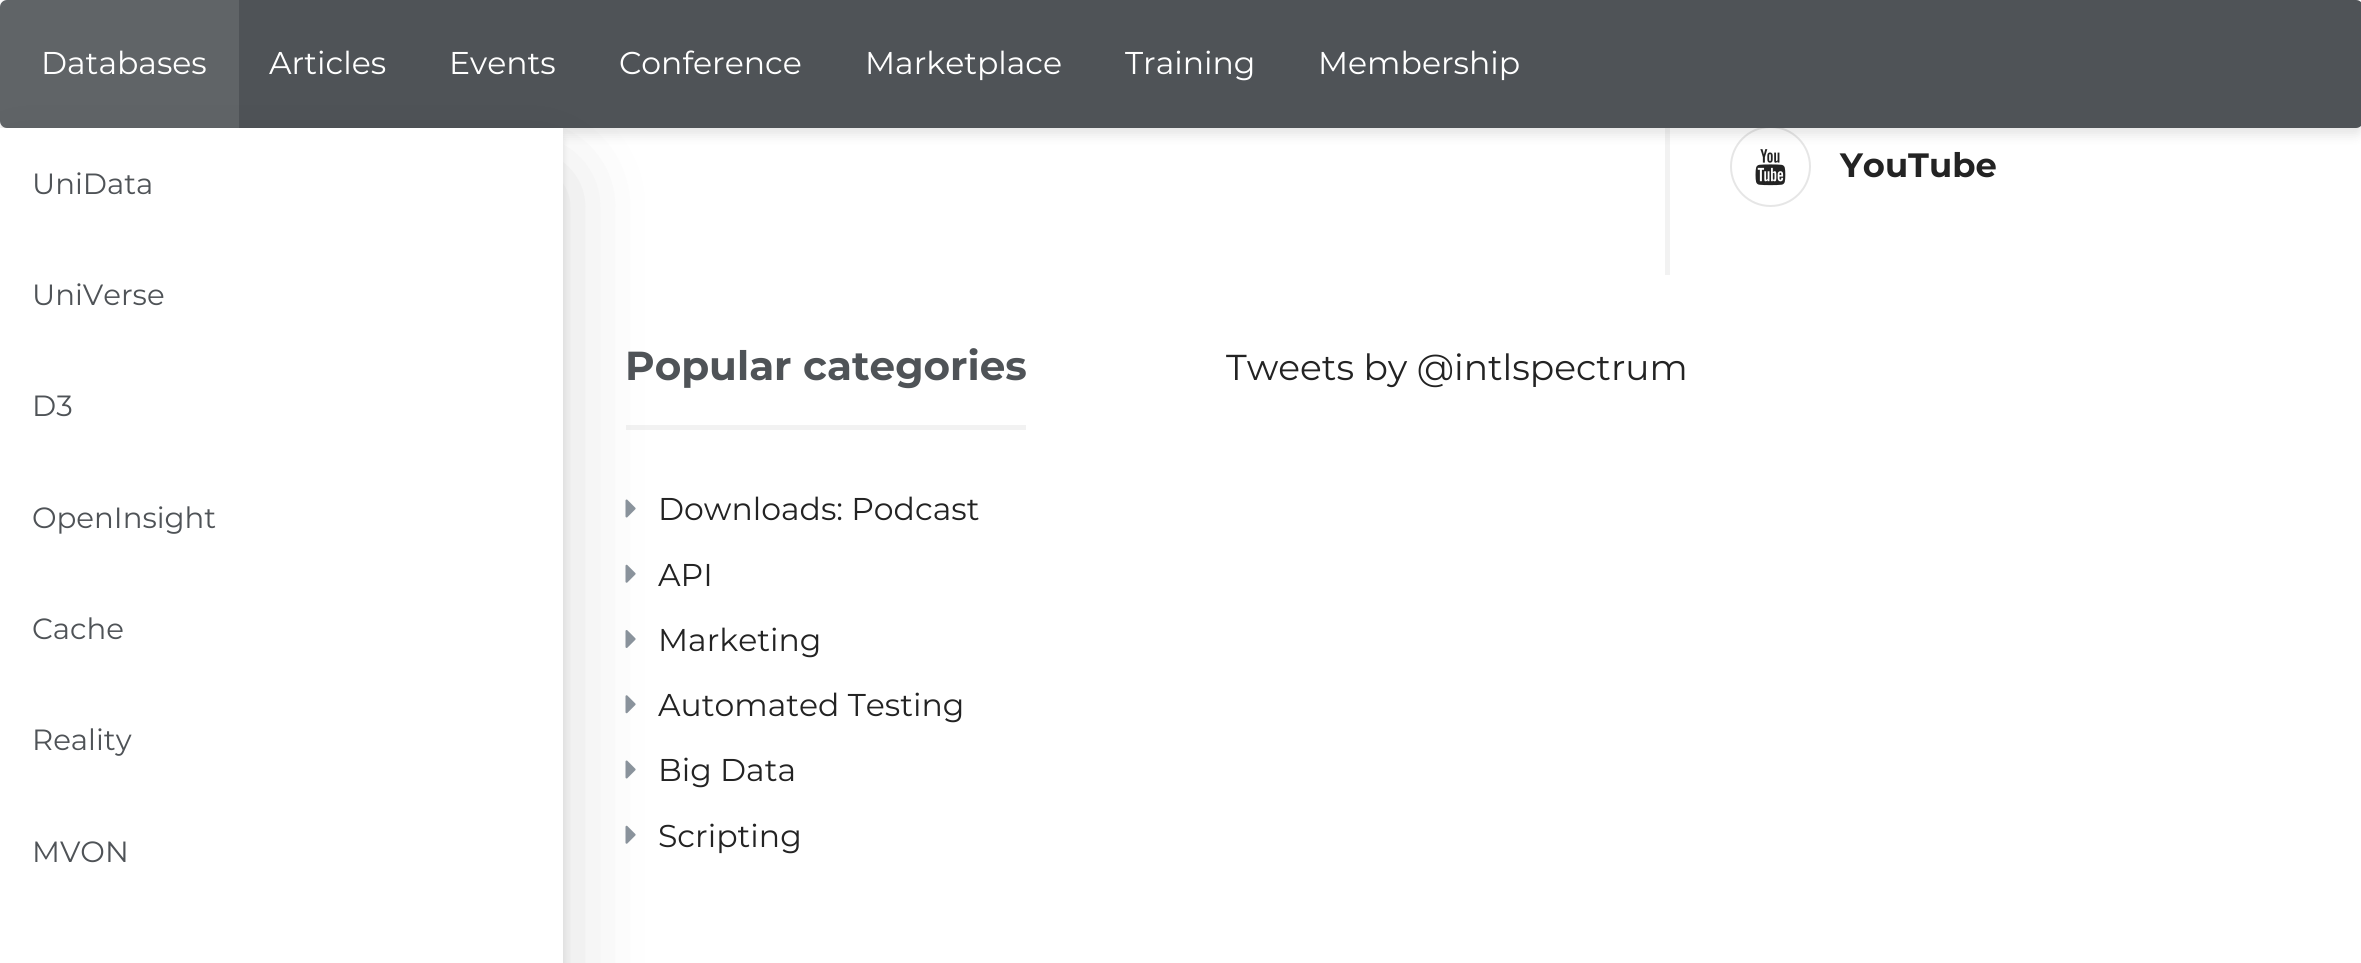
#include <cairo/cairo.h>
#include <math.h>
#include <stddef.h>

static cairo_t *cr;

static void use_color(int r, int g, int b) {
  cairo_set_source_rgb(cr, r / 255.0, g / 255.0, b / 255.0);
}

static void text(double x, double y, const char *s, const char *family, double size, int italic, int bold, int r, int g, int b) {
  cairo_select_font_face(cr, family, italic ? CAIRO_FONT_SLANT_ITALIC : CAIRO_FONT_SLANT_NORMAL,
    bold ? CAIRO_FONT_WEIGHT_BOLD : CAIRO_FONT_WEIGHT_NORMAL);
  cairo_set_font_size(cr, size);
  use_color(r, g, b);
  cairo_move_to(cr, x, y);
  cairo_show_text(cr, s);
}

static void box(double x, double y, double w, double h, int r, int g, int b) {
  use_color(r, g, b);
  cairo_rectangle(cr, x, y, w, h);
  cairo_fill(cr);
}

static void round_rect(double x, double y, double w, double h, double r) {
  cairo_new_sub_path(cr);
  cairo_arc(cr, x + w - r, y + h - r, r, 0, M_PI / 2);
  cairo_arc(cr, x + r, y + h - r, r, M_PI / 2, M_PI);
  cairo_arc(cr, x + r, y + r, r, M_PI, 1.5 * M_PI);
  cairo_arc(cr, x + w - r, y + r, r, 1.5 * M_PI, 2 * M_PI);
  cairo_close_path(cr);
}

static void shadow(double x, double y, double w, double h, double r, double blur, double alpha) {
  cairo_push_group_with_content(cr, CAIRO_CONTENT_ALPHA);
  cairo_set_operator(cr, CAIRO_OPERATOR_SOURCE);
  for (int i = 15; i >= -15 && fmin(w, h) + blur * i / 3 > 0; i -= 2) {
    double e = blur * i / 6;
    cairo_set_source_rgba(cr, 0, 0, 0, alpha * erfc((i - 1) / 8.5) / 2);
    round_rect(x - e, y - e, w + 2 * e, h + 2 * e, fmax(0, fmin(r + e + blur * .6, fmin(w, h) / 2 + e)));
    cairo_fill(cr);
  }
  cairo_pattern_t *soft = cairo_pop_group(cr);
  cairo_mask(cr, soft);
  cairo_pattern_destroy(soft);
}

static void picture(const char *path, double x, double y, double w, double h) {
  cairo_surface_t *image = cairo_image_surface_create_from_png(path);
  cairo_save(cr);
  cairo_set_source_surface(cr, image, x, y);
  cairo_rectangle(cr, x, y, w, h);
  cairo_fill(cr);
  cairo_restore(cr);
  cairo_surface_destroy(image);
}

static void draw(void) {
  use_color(255, 255, 255);
  cairo_paint(cr);
  box(1665, 128, 5, 147, 242, 242, 242);
  cairo_arc(cr, 1770.5, 166.5, 39.5, 0, 2 * M_PI);
  use_color(230, 230, 230);
  cairo_stroke(cr);
  picture("img_01.png", 1755, 149, 31, 37);
  use_color(0, 0, 0);
  shadow(0, 7, 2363, 128, 7, 5.5, 0.1);
  use_color(79, 83, 87);
  round_rect(0, 0, 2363, 128, 7);
  cairo_fill(cr);
  cairo_set_source_rgba(cr, 1, 1, 1, 0.1);
  cairo_rectangle(cr, 0, 0, 239, 128);
  cairo_fill(cr);
  box(626, 425, 400, 5, 242, 242, 242);
  picture("img_02.png", 625, 499, 11, 19);
  picture("img_03.png", 625, 564, 11, 19);
  picture("img_04.png", 625, 630, 11, 18);
  picture("img_05.png", 625, 695, 11, 19);
  picture("img_02.png", 625, 760, 11, 19);
  picture("img_03.png", 625, 825, 11, 19);
  use_color(0, 0, 0);
  shadow(0, 173, 563, 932, 7, 45, 0.15);
  shadow(0, 133, 563, 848, 7, 3.5, 0.1);
  box(0, 128, 563, 835, 255, 255, 255);
  text(41, 74, "Databases", "Montserrat", 31.5, 0, 0, 255, 255, 255);
  text(32, 194, "UniData", "Montserrat", 29.25, 0, 0, 79, 83, 87);
  text(32, 305, "UniVerse", "Montserrat", 29.25, 0, 0, 79, 83, 87);
  text(32, 416, "D3", "Montserrat", 29.25, 0, 0, 79, 83, 87);
  text(32, 528, "OpenInsight", "Montserrat", 29.25, 0, 0, 79, 83, 87);
  text(32, 639, "Cache", "Montserrat", 29.25, 0, 0, 79, 83, 87);
  text(32, 750, "Reality", "Montserrat", 29.25, 0, 0, 79, 83, 87);
  text(32, 862, "MVON", "Montserrat", 29.25, 0, 0, 79, 83, 87);
  text(269, 74, "Articles", "Montserrat", 31.5, 0, 0, 255, 255, 255);
  text(449, 74, "Events", "Montserrat", 31.5, 0, 0, 255, 255, 255);
  text(619, 74, "Conference", "Montserrat", 31.5, 0, 0, 255, 255, 255);
  text(865, 74, "Marketplace", "Montserrat", 31.5, 0, 0, 255, 255, 255);
  text(1125, 74, "Training", "Montserrat", 31.5, 0, 0, 255, 255, 255);
  text(1318, 74, "Membership", "Montserrat", 31.5, 0, 0, 255, 255, 255);
  text(1840, 177, "YouTube", "Montserrat", 33.75, 0, 1, 35, 35, 35);
  text(625, 380, "Popular categories", "Montserrat", 40.5, 0, 1, 79, 83, 87);
  text(658, 520, "Downloads: Podcast", "Montserrat", 31.5, 0, 0, 35, 35, 35);
  text(658, 586, "API", "Montserrat", 31.5, 0, 0, 35, 35, 35);
  text(658, 651, "Marketing", "Montserrat", 31.5, 0, 0, 35, 35, 35);
  text(658, 716, "Automated Testing", "Montserrat", 31.5, 0, 0, 35, 35, 35);
  text(658, 781, "Big Data", "Montserrat", 31.5, 0, 0, 35, 35, 35);
  text(658, 847, "Scripting", "Montserrat", 31.5, 0, 0, 35, 35, 35);
  text(1226, 380, "Tweets by @intlspectrum", "Montserrat", 36, 0, 0, 35, 35, 35);
}

int main(void) {
  cairo_surface_t *surface = cairo_image_surface_create(CAIRO_FORMAT_RGB24, 2361, 963);
  cr = cairo_create(surface);
  cairo_font_options_t *options = cairo_font_options_create();
  cairo_font_options_set_hint_metrics(options, CAIRO_HINT_METRICS_OFF);
  cairo_font_options_set_hint_style(options, CAIRO_HINT_STYLE_NONE);
  cairo_set_font_options(cr, options);
  cairo_set_miter_limit(cr, 4);
  draw();
  cairo_surface_write_to_png(surface, "out.png");
  cairo_font_options_destroy(options);
  cairo_destroy(cr);
  cairo_surface_destroy(surface);
  return 0;
}
